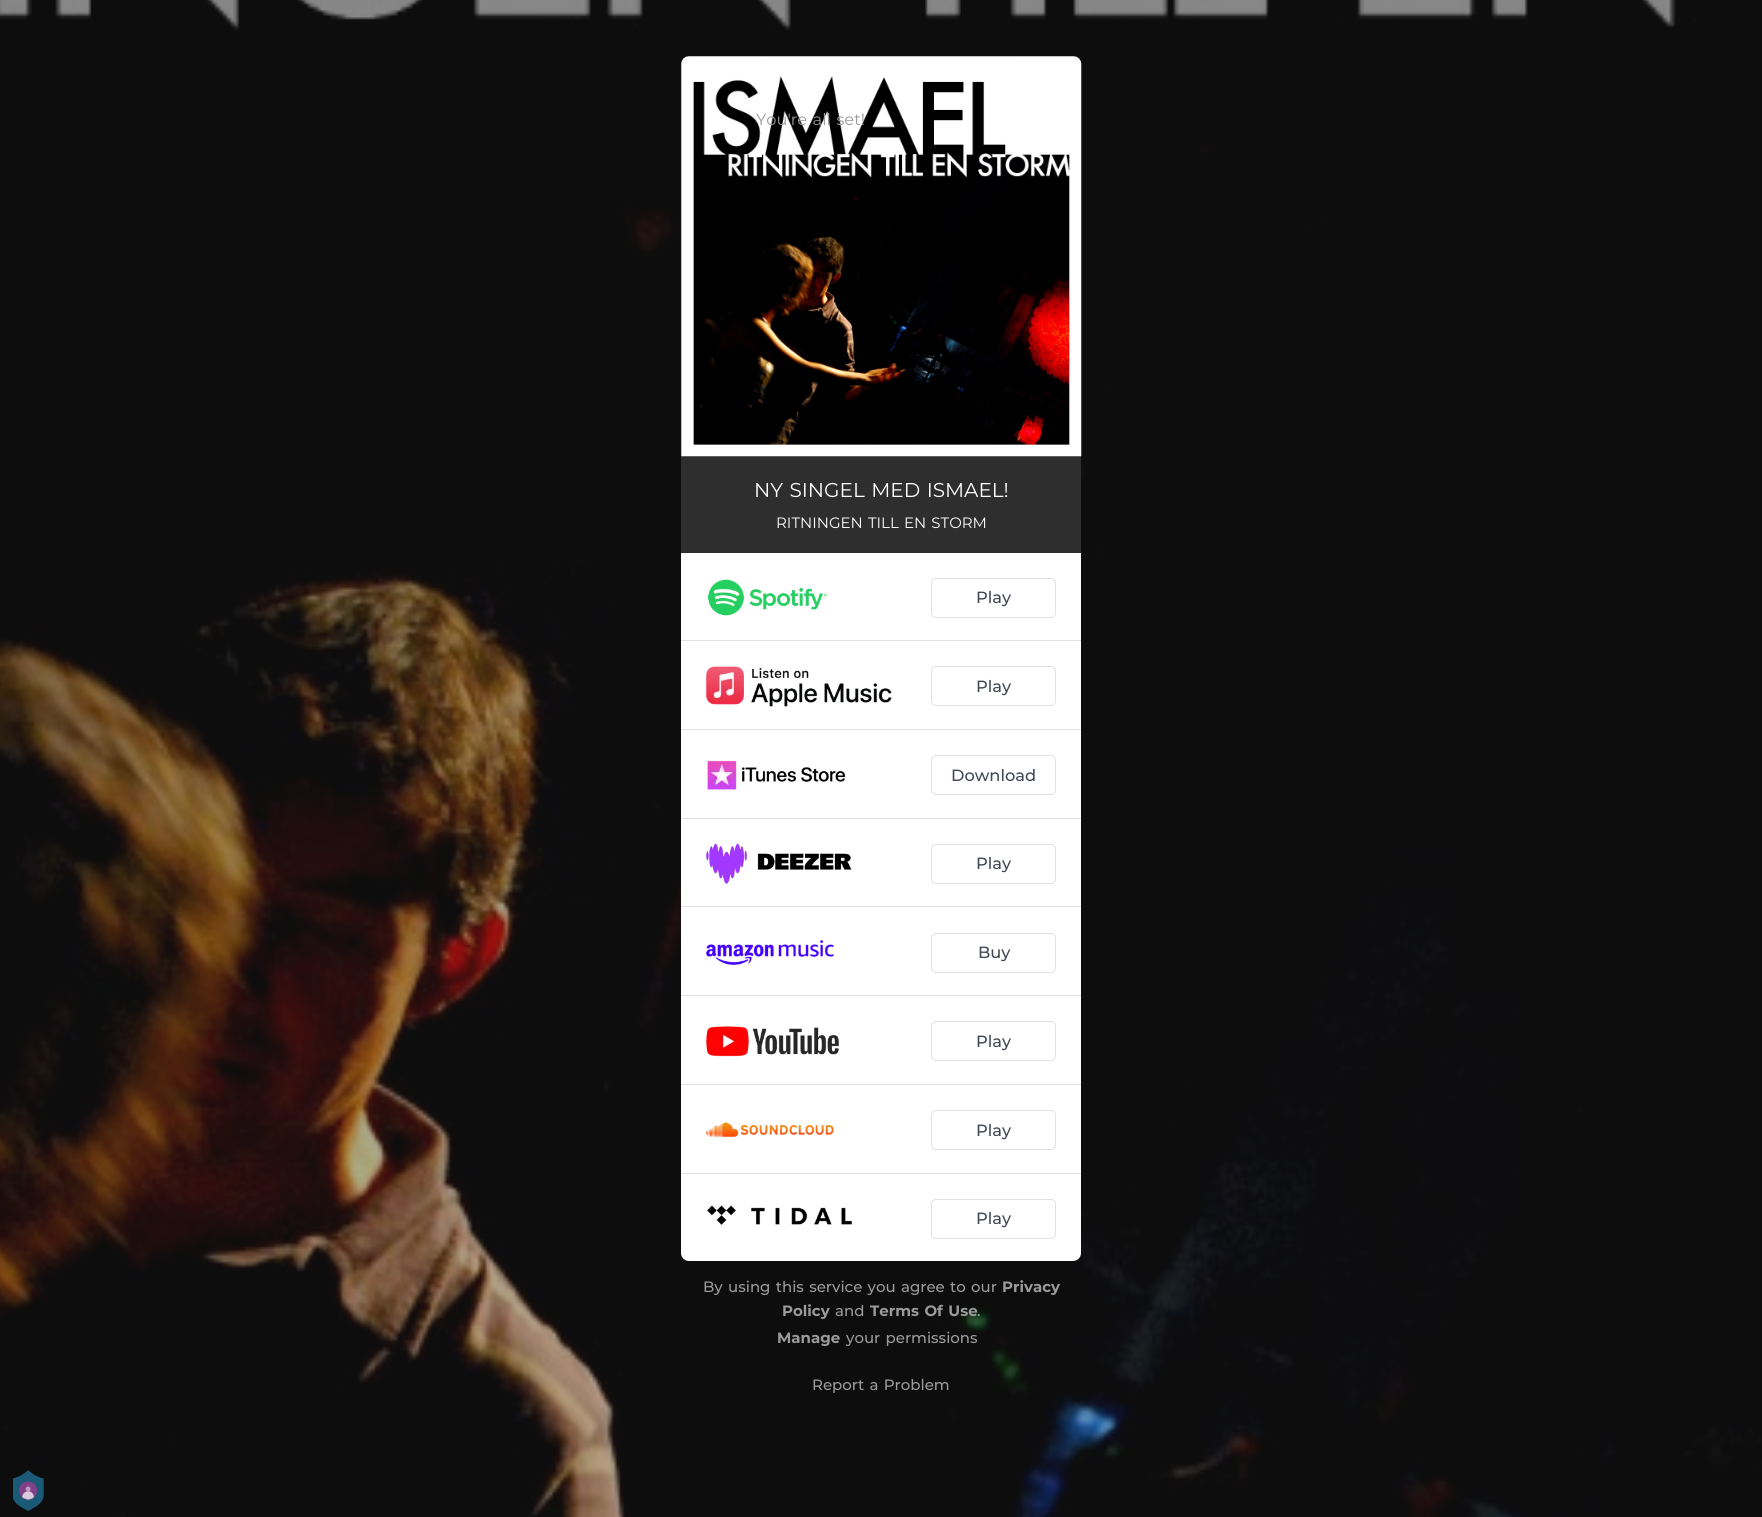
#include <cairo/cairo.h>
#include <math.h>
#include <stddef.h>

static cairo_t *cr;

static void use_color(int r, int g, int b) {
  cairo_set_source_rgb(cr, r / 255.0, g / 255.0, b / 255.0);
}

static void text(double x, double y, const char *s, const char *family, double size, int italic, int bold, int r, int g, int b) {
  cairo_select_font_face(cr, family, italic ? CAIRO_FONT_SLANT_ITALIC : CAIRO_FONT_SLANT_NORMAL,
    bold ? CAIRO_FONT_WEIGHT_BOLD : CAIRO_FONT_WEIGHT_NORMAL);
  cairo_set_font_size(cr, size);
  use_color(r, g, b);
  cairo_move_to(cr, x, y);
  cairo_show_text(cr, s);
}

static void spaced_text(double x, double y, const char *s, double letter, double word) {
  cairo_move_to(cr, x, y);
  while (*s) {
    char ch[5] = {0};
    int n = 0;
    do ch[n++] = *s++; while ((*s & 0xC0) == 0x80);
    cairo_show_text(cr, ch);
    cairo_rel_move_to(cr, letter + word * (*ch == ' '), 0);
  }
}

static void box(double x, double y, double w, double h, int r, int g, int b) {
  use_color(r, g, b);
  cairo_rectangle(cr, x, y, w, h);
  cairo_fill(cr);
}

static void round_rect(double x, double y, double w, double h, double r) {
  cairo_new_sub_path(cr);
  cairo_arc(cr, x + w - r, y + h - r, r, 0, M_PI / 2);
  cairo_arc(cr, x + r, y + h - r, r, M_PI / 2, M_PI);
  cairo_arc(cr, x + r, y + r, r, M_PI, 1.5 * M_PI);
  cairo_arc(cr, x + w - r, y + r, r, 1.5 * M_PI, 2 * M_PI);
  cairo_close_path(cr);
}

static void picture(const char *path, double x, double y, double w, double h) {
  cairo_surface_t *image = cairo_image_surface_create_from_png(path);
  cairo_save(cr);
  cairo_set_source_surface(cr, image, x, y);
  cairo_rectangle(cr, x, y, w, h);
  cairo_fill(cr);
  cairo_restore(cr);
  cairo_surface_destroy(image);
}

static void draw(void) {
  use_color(255, 255, 255);
  cairo_paint(cr);
  picture("img_01.png", 0, 0, 1762, 1517);
  box(681, 456, 400, 97, 46, 46, 46);
  picture("img_02.png", 681, 56, 401, 401);
  cairo_set_source_rgba(cr, 0, 0, 0, 0.45);
  cairo_arc(cr, 881.5, 256.5, 62.5, 0, 2 * M_PI);
  cairo_fill(cr);
  use_color(255, 255, 255);
  cairo_new_path(cr);
  cairo_move_to(cr, 681, 553);
  cairo_line_to(cr, 1081, 553);
  cairo_line_to(cr, 1081, 1253);
  cairo_curve_to(cr, 1081, 1257.5, 1077.5, 1261, 1073, 1261);
  cairo_line_to(cr, 689, 1261);
  cairo_curve_to(cr, 684.5, 1261, 681, 1257.5, 681, 1253);
  cairo_close_path(cr);
  cairo_fill(cr);
  box(681, 640, 400, 1, 225, 225, 228);
  picture("img_03.png", 707, 579, 121, 37);
  round_rect(931.5, 578.5, 124, 39, 4.5);
  cairo_set_line_width(cr, 1);
  cairo_stroke(cr);
  box(681, 729, 400, 1, 225, 225, 228);
  picture("img_04.png", 706, 666, 186, 41);
  round_rect(931.5, 666.5, 124, 39, 4.5);
  cairo_stroke(cr);
  box(681, 818, 400, 1, 225, 225, 228);
  picture("img_05.png", 707, 760, 139, 30);
  round_rect(931.5, 755.5, 124, 39, 4.5);
  cairo_stroke(cr);
  box(681, 906, 400, 1, 225, 225, 228);
  picture("img_06.png", 706, 843, 146, 41);
  round_rect(931.5, 844.5, 124, 39, 4.5);
  cairo_stroke(cr);
  box(681, 995, 400, 1, 225, 225, 228);
  picture("img_07.png", 706, 940, 128, 25);
  round_rect(931.5, 933.5, 124, 39, 4.5);
  cairo_stroke(cr);
  box(681, 1084, 400, 1, 225, 225, 228);
  picture("img_08.png", 706, 1026, 133, 31);
  round_rect(931.5, 1021.5, 124, 39, 4.5);
  cairo_stroke(cr);
  box(681, 1173, 400, 1, 225, 225, 228);
  picture("img_09.png", 706, 1122, 128, 15);
  round_rect(931.5, 1110.5, 124, 39, 4.5);
  cairo_stroke(cr);
  picture("img_10.png", 707, 1205, 145, 20);
  round_rect(931.5, 1199.5, 124, 39, 4.5);
  cairo_stroke(cr);
  picture("img_11.png", 13, 1470, 31, 41);
  cairo_select_font_face(cr, "Montserrat", CAIRO_FONT_SLANT_NORMAL, CAIRO_FONT_WEIGHT_NORMAL);
  cairo_set_font_size(cr, 16.25);
  use_color(155, 155, 155);
  spaced_text(756, 125, "You're all set!", 0, 1.25);
  cairo_set_font_size(cr, 20);
  use_color(255, 255, 255);
  spaced_text(754, 497, "NY SINGEL MED ISMAEL!", 0, 1.25);
  cairo_set_font_size(cr, 15);
  spaced_text(776, 528, "RITNINGEN TILL EN STORM", 0, 1.25);
  text(976, 603, "Play", "Montserrat Medium", 16.25, 0, 0, 65, 71, 84);
  text(976, 692, "Play", "Montserrat Medium", 16.25, 0, 0, 65, 71, 84);
  text(951, 781, "Download", "Montserrat Medium", 16.25, 0, 0, 65, 71, 84);
  text(976, 869, "Play", "Montserrat Medium", 16.25, 0, 0, 65, 71, 84);
  text(978, 958, "Buy", "Montserrat Medium", 16.25, 0, 0, 65, 71, 84);
  text(976, 1047, "Play", "Montserrat Medium", 16.25, 0, 0, 65, 71, 84);
  text(976, 1136, "Play", "Montserrat Medium", 16.25, 0, 0, 65, 71, 84);
  text(976, 1224, "Play", "Montserrat Medium", 16.25, 0, 0, 65, 71, 84);
  cairo_set_font_size(cr, 15);
  use_color(155, 155, 155);
  spaced_text(703, 1292, "By using this service you agree to our", 0, 1.25);
  text(1002, 1292, "Privacy", "Montserrat", 15, 0, 1, 155, 155, 155);
  text(782, 1316, "Policy", "Montserrat", 15, 0, 1, 155, 155, 155);
  text(835, 1316, "and", "Montserrat Medium", 15, 0, 0, 155, 155, 155);
  cairo_select_font_face(cr, "Montserrat", CAIRO_FONT_SLANT_NORMAL, CAIRO_FONT_WEIGHT_BOLD);
  spaced_text(870, 1316, "Terms Of Use", 0, 1.25);
  text(977, 1316, ".", "Montserrat Medium", 15, 0, 0, 160, 173, 163);
  text(777, 1343, "Manage", "Montserrat", 15, 0, 1, 155, 155, 155);
  cairo_select_font_face(cr, "Montserrat Medium", CAIRO_FONT_SLANT_NORMAL, CAIRO_FONT_WEIGHT_NORMAL);
  spaced_text(846, 1343, "your permissions", 0, 1.25);
  spaced_text(812, 1390, "Report a Problem", 0, 1.25);
}

int main(void) {
  cairo_surface_t *surface = cairo_image_surface_create(CAIRO_FORMAT_RGB24, 1762, 1517);
  cr = cairo_create(surface);
  cairo_font_options_t *options = cairo_font_options_create();
  cairo_font_options_set_hint_metrics(options, CAIRO_HINT_METRICS_OFF);
  cairo_font_options_set_hint_style(options, CAIRO_HINT_STYLE_NONE);
  cairo_set_font_options(cr, options);
  cairo_set_miter_limit(cr, 4);
  draw();
  cairo_surface_write_to_png(surface, "out.png");
  cairo_font_options_destroy(options);
  cairo_destroy(cr);
  cairo_surface_destroy(surface);
  return 0;
}
